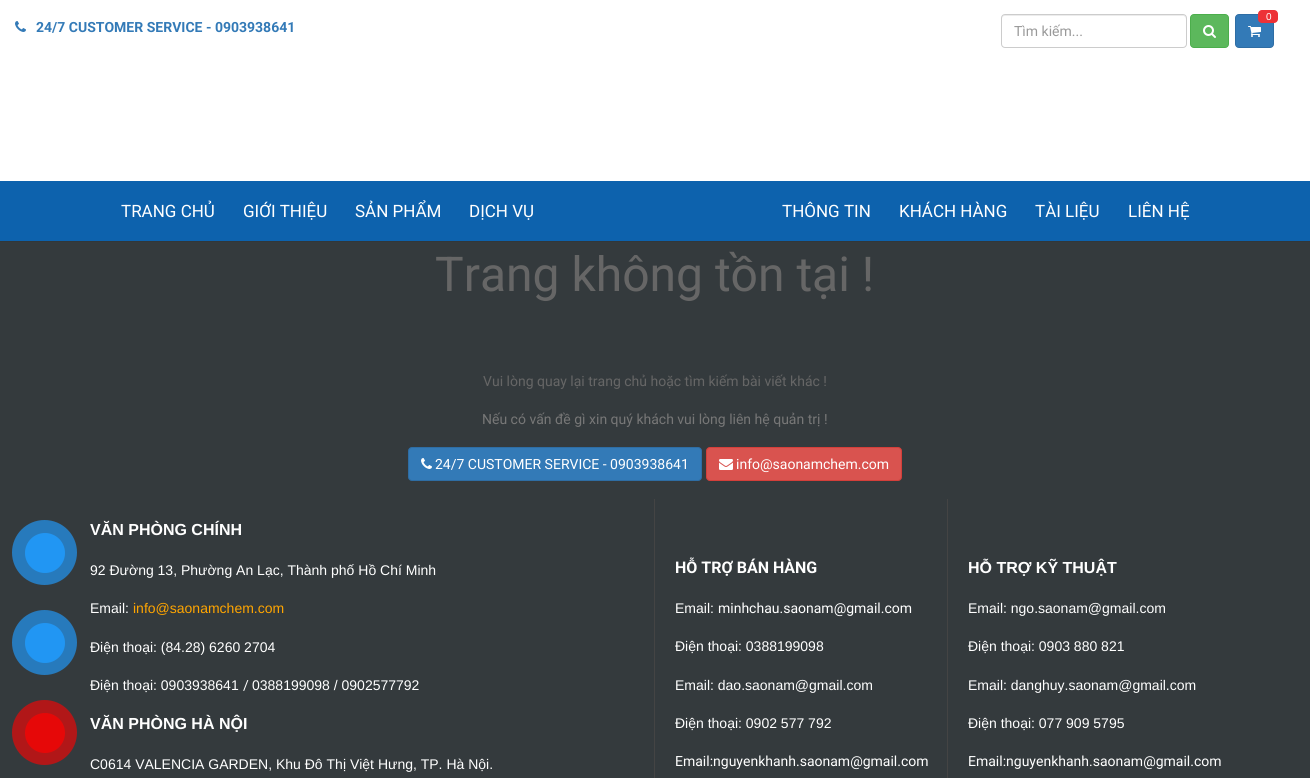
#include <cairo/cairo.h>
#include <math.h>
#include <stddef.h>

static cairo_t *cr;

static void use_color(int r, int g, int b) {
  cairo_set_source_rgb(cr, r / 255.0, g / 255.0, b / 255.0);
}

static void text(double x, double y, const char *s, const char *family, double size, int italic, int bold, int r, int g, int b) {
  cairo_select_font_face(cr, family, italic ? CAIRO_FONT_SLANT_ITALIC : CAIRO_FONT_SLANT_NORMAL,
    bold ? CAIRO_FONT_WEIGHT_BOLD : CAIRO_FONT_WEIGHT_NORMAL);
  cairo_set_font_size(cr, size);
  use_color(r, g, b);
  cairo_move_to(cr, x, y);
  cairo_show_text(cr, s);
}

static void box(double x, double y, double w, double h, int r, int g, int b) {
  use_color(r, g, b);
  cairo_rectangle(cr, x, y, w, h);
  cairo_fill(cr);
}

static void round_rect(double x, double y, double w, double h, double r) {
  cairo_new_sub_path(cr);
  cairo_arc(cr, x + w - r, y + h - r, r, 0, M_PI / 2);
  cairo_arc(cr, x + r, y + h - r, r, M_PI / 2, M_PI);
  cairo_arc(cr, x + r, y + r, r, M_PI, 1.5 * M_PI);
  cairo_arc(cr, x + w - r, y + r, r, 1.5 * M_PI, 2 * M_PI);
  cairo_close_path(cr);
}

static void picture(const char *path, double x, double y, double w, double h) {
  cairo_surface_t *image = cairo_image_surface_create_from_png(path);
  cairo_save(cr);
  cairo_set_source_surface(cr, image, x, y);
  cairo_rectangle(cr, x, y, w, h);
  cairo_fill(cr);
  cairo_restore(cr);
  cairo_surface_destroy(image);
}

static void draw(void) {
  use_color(255, 255, 255);
  cairo_paint(cr);
  picture("img_01.png", 15, 21, 11, 11);
  use_color(51, 122, 183);
  round_rect(1235.5, 14.5, 38, 33, 3.5);
  cairo_fill_preserve(cr);
  use_color(46, 109, 164);
  cairo_set_line_width(cr, 1);
  cairo_stroke(cr);
  use_color(237, 50, 55);
  round_rect(1258, 10, 20, 13, 4);
  cairo_fill(cr);
  picture("img_02.png", 1248, 26, 13, 11);
  use_color(236, 236, 236);
  cairo_new_path(cr);
  cairo_move_to(cr, 1005, 16);
  cairo_line_to(cr, 1184, 16);
  cairo_line_to(cr, 1185, 17);
  cairo_line_to(cr, 1186, 19);
  cairo_curve_to(cr, 1186, 17, 1185, 15, 1183, 15);
  cairo_line_to(cr, 1004, 15);
  cairo_curve_to(cr, 1002, 16, 1002, 17, 1002, 19);
  cairo_curve_to(cr, 1002, 17, 1003, 16, 1005, 16);
  cairo_close_path(cr);
  cairo_fill(cr);
  round_rect(1001.5, 14.5, 185, 33, 3.5);
  use_color(204, 204, 204);
  cairo_stroke(cr);
  use_color(92, 184, 92);
  round_rect(1190.5, 14.5, 38, 33, 3.5);
  cairo_fill_preserve(cr);
  use_color(76, 174, 76);
  cairo_stroke(cr);
  picture("img_03.png", 1203, 25, 13, 13);
  box(0, 241, 1310, 1, 49, 55, 58);
  box(0, 181, 1310, 60, 13, 98, 173);
  box(0, 242, 1310, 536, 52, 58, 61);
  use_color(51, 122, 183);
  round_rect(408.5, 447.5, 293, 33, 3.5);
  cairo_fill_preserve(cr);
  use_color(46, 109, 164);
  cairo_stroke(cr);
  picture("img_04.png", 421, 458, 11, 11);
  use_color(217, 83, 79);
  round_rect(706.5, 447.5, 195, 33, 3.5);
  cairo_fill_preserve(cr);
  use_color(212, 63, 58);
  cairo_stroke(cr);
  picture("img_05.png", 719, 459, 14, 11);
  use_color(39, 122, 188);
  cairo_arc(cr, 44.5, 552.5, 32.5, 0, 2 * M_PI);
  cairo_fill(cr);
  use_color(33, 150, 243);
  cairo_arc(cr, 45, 553, 20, 0, 2 * M_PI);
  cairo_fill(cr);
  use_color(39, 122, 188);
  cairo_arc(cr, 44.5, 642.5, 32.5, 0, 2 * M_PI);
  cairo_fill(cr);
  use_color(33, 150, 243);
  cairo_arc(cr, 45, 643, 20, 0, 2 * M_PI);
  cairo_fill(cr);
  use_color(177, 23, 24);
  cairo_arc(cr, 44.5, 732.5, 32.5, 0, 2 * M_PI);
  cairo_fill(cr);
  use_color(230, 8, 8);
  cairo_arc(cr, 45, 733, 20, 0, 2 * M_PI);
  cairo_fill(cr);
  box(654, 499, 1, 279, 68, 68, 68);
  box(947, 499, 1, 279, 68, 68, 68);
  text(36, 32, "24/7 CUSTOMER SERVICE - 0903938641", "Roboto", 14, 0, 1, 51, 122, 183);
  text(1266, 20, "0", "Liberation Sans", 10, 0, 0, 255, 255, 255);
  text(1014, 36, "Tìm kiếm...", "Roboto", 14, 0, 0, 153, 153, 153);
  text(121, 217, "TRANG CHỦ", "Roboto", 17, 0, 0, 255, 255, 255);
  text(243, 217, "GIỚI THIỆU", "Roboto", 17, 0, 0, 255, 255, 255);
  text(355, 217, "SẢN PHẨM", "Roboto", 17, 0, 0, 255, 255, 255);
  text(469, 217, "DỊCH VỤ", "Roboto", 17, 0, 0, 255, 255, 255);
  text(782, 217, "THÔNG TIN", "Roboto", 17, 0, 0, 255, 255, 255);
  text(899, 217, "KHÁCH HÀNG", "Roboto", 17, 0, 0, 255, 255, 255);
  text(1035, 217, "TÀI LIỆU", "Roboto", 17, 0, 0, 255, 255, 255);
  text(1128, 217, "LIÊN HỆ", "Roboto", 17, 0, 0, 255, 255, 255);
  text(435, 291, "Trang không tồn tại !", "Roboto", 48, 0, 0, 102, 102, 102);
  text(483, 386, "Vui lòng quay lại trang chủ hoặc tìm kiếm bài viết khác !", "Roboto", 14, 0, 0, 102, 102, 102);
  text(482, 424, "Nếu có vấn đề gì xin quý khách vui lòng liên hệ quản trị !", "Roboto", 14, 0, 0, 119, 119, 119);
  text(435, 469, "24/7 CUSTOMER SERVICE - 0903938641", "Roboto", 14, 0, 0, 255, 255, 255);
  text(736, 469, "info@saonamchem.com", "Roboto", 14, 0, 0, 255, 255, 255);
  text(90, 535, "VĂN PHÒNG CHÍNH", "Liberation Sans", 16, 0, 1, 255, 255, 255);
  text(90, 575, "92 Đường 13, Phường An Lạc, Thành phố Hồ Chí Minh", "Liberation Sans", 14, 0, 0, 255, 255, 255);
  text(90, 613, "Email:", "Liberation Sans", 14, 0, 0, 255, 255, 255);
  text(133, 613, "info@saonamchem.com", "Liberation Sans", 14, 0, 0, 255, 165, 0);
  text(90, 652, "Điện thoại: (84.28) 6260 2704", "Liberation Sans", 14, 0, 0, 255, 255, 255);
  text(90, 690, "Điện thoại: 0903938641", "Liberation Sans", 14, 0, 0, 255, 255, 255);
  text(243, 690, "/", "Roboto", 14, 0, 0, 255, 255, 255);
  text(252, 690, "0388199098 / 0902577792", "Liberation Sans", 14, 0, 0, 255, 255, 255);
  text(90, 729, "VĂN PHÒNG HÀ NỘI", "Liberation Sans", 16, 0, 1, 255, 255, 255);
  text(90, 769, "C0614 VALENCIA GARDEN, Khu Đô Thị Việt Hưng, TP. Hà Nội.", "Liberation Sans", 14, 0, 0, 255, 255, 255);
  text(675, 573, "HỖ TRỢ BÁN HÀNG", "Roboto", 16, 0, 1, 255, 255, 255);
  text(675, 613, "Email:", "Liberation Sans", 14, 0, 0, 255, 255, 255);
  text(718, 613, "minhchau.saonam@gmail.com", "Roboto", 14, 0, 0, 255, 255, 255);
  text(675, 651, "Điện thoại: 0388199098", "Liberation Sans", 14, 0, 0, 255, 255, 255);
  text(675, 690, "Email: dao.saonam@gmail.com", "Liberation Sans", 14, 0, 0, 255, 255, 255);
  text(675, 728, "Điện thoại: 0902 577 792", "Liberation Sans", 14, 0, 0, 255, 255, 255);
  text(675, 766, "Email:nguyenkhanh.saonam@gmail.com", "Roboto", 14, 0, 0, 255, 255, 255);
  text(968, 573, "HỖ TRỢ KỸ THUẬT", "Liberation Sans", 16, 0, 1, 255, 255, 255);
  text(968, 613, "Email: ngo.saonam@gmail.com", "Liberation Sans", 14, 0, 0, 255, 255, 255);
  text(968, 651, "Điện thoại: 0903 880 821", "Liberation Sans", 14, 0, 0, 255, 255, 255);
  text(968, 690, "Email: danghuy.saonam@gmail.com", "Liberation Sans", 14, 0, 0, 255, 255, 255);
  text(968, 728, "Điện thoại: 077 909 5795", "Liberation Sans", 14, 0, 0, 255, 255, 255);
  text(968, 766, "Email:nguyenkhanh.saonam@gmail.com", "Roboto", 14, 0, 0, 255, 255, 255);
}

int main(void) {
  cairo_surface_t *surface = cairo_image_surface_create(CAIRO_FORMAT_RGB24, 1310, 778);
  cr = cairo_create(surface);
  cairo_font_options_t *options = cairo_font_options_create();
  cairo_font_options_set_hint_metrics(options, CAIRO_HINT_METRICS_OFF);
  cairo_font_options_set_hint_style(options, CAIRO_HINT_STYLE_NONE);
  cairo_set_font_options(cr, options);
  cairo_set_miter_limit(cr, 4);
  draw();
  cairo_surface_write_to_png(surface, "out.png");
  cairo_font_options_destroy(options);
  cairo_destroy(cr);
  cairo_surface_destroy(surface);
  return 0;
}
